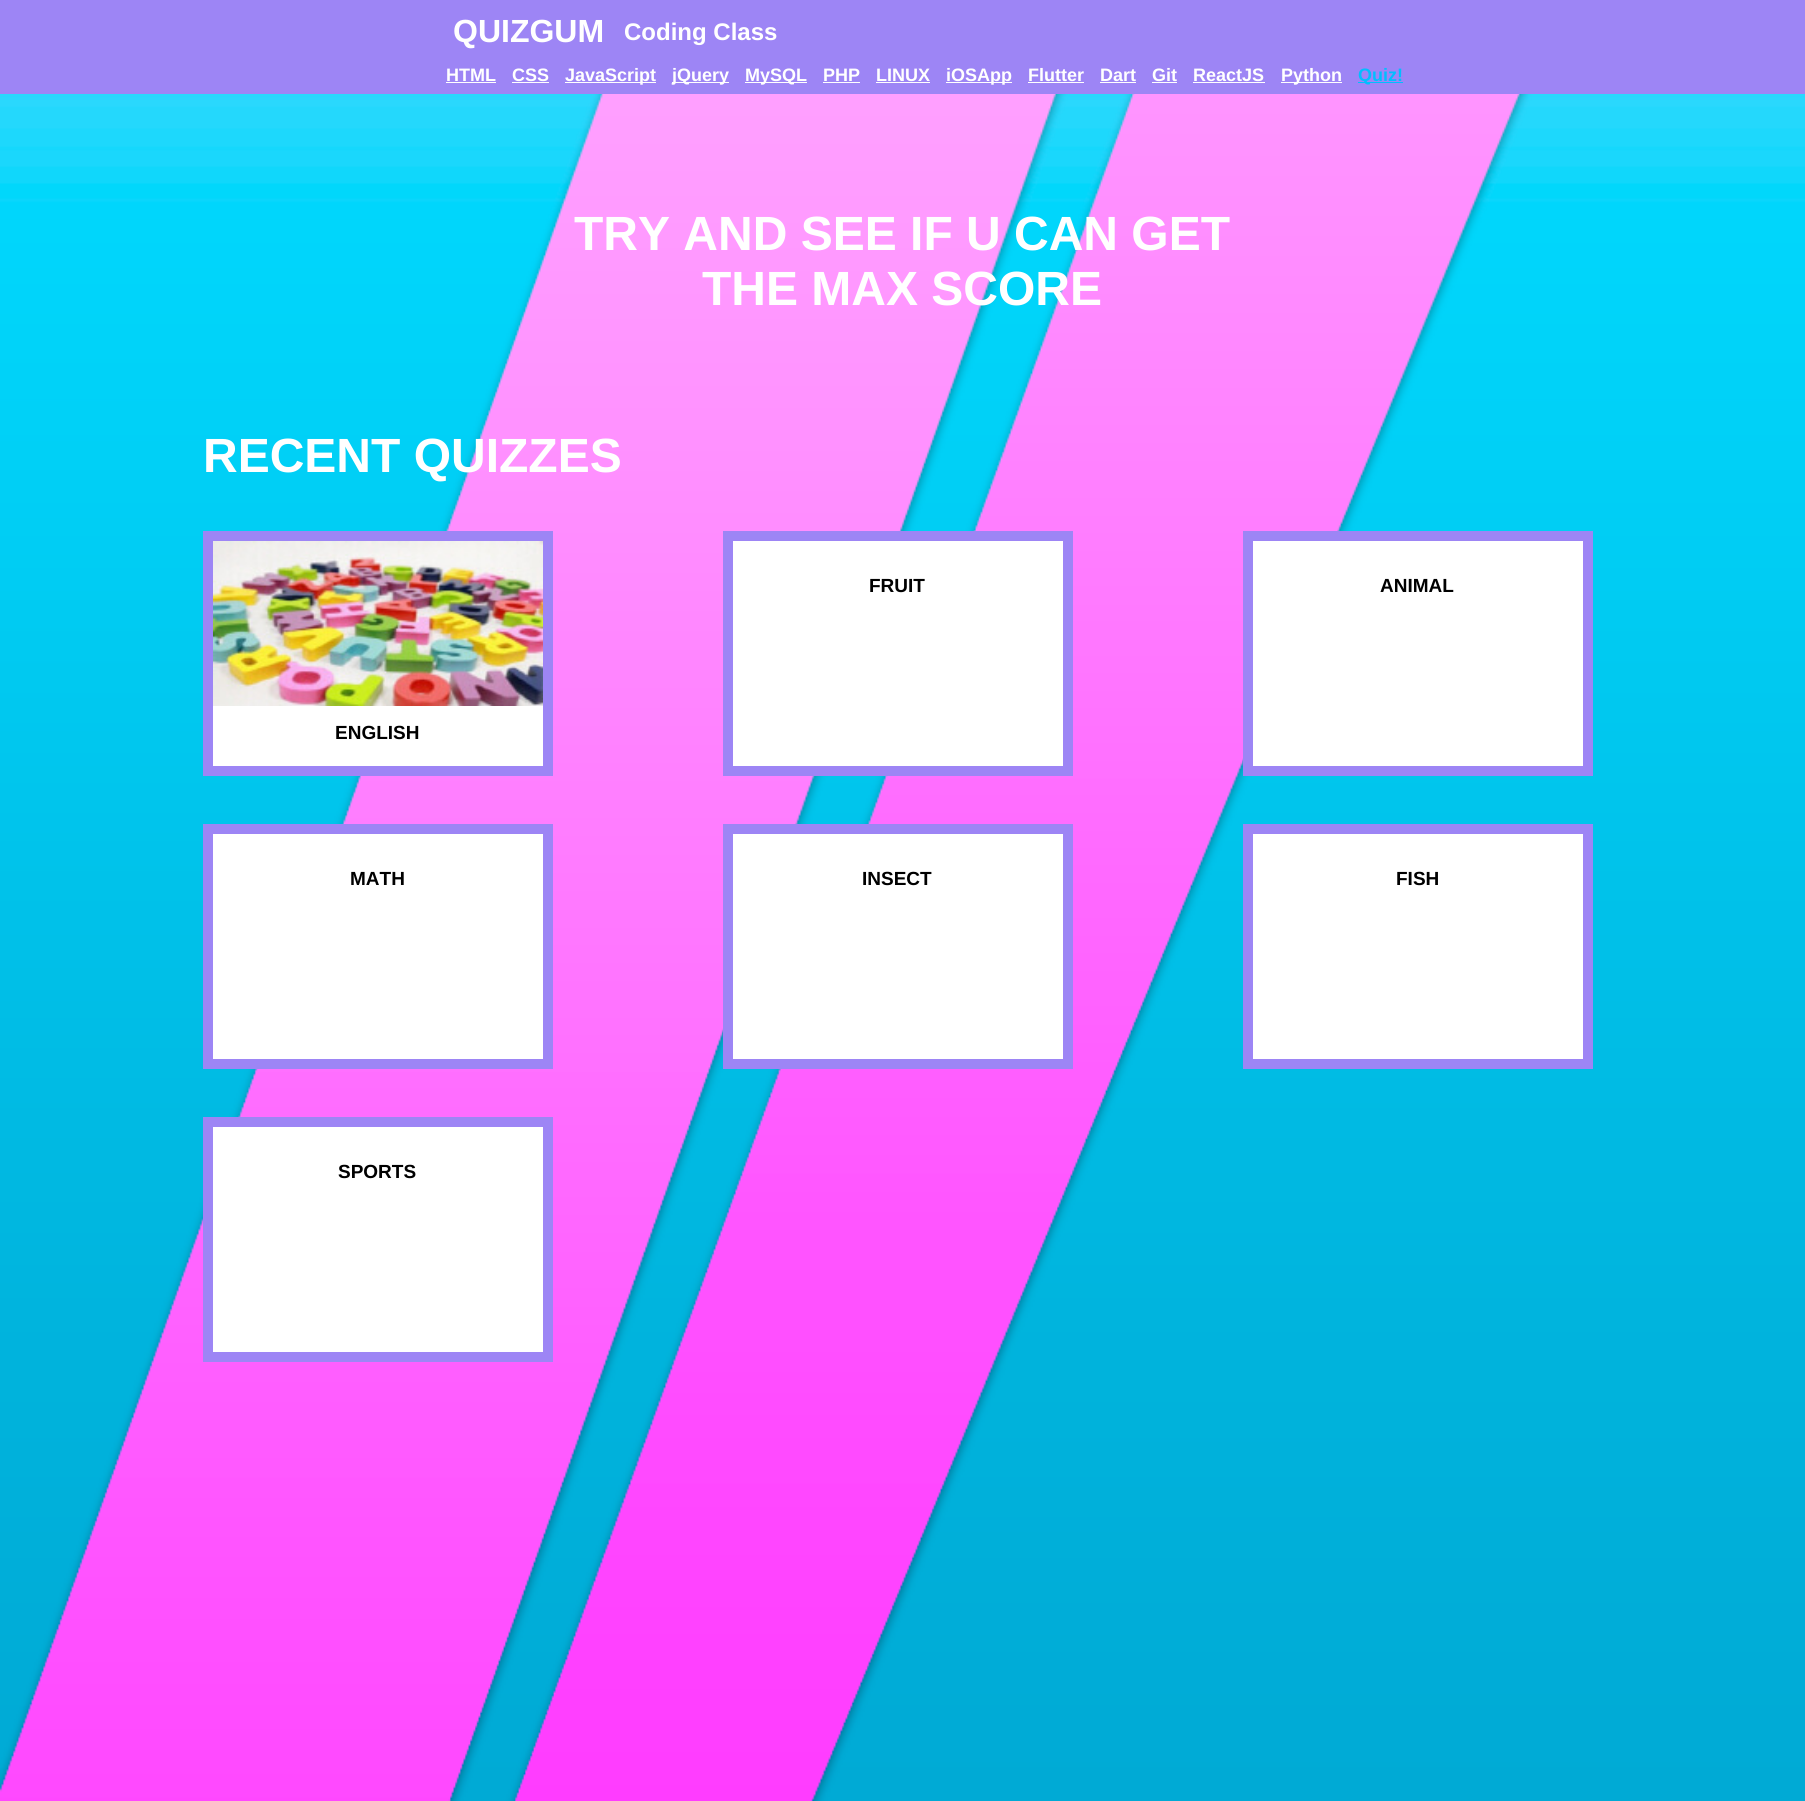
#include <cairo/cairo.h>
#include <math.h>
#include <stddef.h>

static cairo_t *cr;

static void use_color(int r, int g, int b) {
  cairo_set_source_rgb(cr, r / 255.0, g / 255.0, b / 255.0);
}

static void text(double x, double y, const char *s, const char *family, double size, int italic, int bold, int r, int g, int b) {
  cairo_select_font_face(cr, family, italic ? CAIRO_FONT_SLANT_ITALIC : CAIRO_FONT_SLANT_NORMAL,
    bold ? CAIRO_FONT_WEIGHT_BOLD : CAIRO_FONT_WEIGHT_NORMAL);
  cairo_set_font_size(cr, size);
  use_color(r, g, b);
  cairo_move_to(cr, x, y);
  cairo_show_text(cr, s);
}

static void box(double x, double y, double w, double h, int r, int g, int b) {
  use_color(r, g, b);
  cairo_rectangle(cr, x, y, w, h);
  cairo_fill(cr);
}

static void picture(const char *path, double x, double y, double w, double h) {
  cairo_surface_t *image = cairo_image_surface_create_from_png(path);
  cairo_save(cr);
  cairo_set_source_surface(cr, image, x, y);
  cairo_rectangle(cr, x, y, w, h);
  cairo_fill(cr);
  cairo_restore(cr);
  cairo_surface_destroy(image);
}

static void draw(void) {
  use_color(255, 255, 255);
  cairo_paint(cr);
  picture("img_01.png", 0, 94, 1805, 1707);
  box(0, 0, 1805, 94, 157, 133, 245);
  box(446, 82, 50, 1, 255, 255, 255);
  box(512, 82, 37, 1, 255, 255, 255);
  box(565, 82, 91, 1, 255, 255, 255);
  box(672, 82, 57, 1, 255, 255, 255);
  box(745, 82, 62, 1, 255, 255, 255);
  box(823, 82, 37, 1, 255, 255, 255);
  box(876, 82, 54, 1, 255, 255, 255);
  box(946, 82, 66, 1, 255, 255, 255);
  box(1028, 82, 56, 1, 255, 255, 255);
  box(1100, 82, 36, 1, 255, 255, 255);
  box(1152, 82, 25, 1, 255, 255, 255);
  box(1193, 82, 72, 1, 255, 255, 255);
  box(1281, 82, 61, 1, 255, 255, 255);
  box(1358, 82, 45, 1, 0, 191, 255);
  use_color(255, 255, 255);
  cairo_rectangle(cr, 728, 536, 340, 235);
  cairo_fill_preserve(cr);
  use_color(157, 133, 245);
  cairo_set_line_width(cr, 10);
  cairo_stroke(cr);
  use_color(255, 255, 255);
  cairo_rectangle(cr, 1248, 536, 340, 235);
  cairo_fill_preserve(cr);
  use_color(157, 133, 245);
  cairo_stroke(cr);
  box(213, 706, 330, 60, 255, 255, 255);
  cairo_rectangle(cr, 208, 536, 340, 235);
  use_color(157, 133, 245);
  cairo_stroke(cr);
  picture("img_02.png", 213, 541, 330, 165);
  use_color(255, 255, 255);
  cairo_rectangle(cr, 208, 829, 340, 235);
  cairo_fill_preserve(cr);
  use_color(157, 133, 245);
  cairo_stroke(cr);
  use_color(255, 255, 255);
  cairo_rectangle(cr, 728, 829, 340, 235);
  cairo_fill_preserve(cr);
  use_color(157, 133, 245);
  cairo_stroke(cr);
  use_color(255, 255, 255);
  cairo_rectangle(cr, 1248, 829, 340, 235);
  cairo_fill_preserve(cr);
  use_color(157, 133, 245);
  cairo_stroke(cr);
  use_color(255, 255, 255);
  cairo_rectangle(cr, 208, 1122, 340, 235);
  cairo_fill_preserve(cr);
  use_color(157, 133, 245);
  cairo_stroke(cr);
  text(453, 42, "QUIZGUM", "Liberation Sans", 32, 0, 1, 255, 255, 255);
  text(624, 40, "Coding Class", "Liberation Sans", 24, 0, 1, 255, 255, 255);
  text(446, 81, "HTML", "Liberation Sans", 18, 0, 1, 255, 255, 255);
  text(512, 81, "CSS", "Liberation Sans", 18, 0, 1, 255, 255, 255);
  text(565, 81, "JavaScript", "Liberation Sans", 18, 0, 1, 255, 255, 255);
  text(672, 81, "jQuery", "Liberation Sans", 18, 0, 1, 255, 255, 255);
  text(745, 81, "MySQL", "Liberation Sans", 18, 0, 1, 255, 255, 255);
  text(823, 81, "PHP", "Liberation Sans", 18, 0, 1, 255, 255, 255);
  text(876, 81, "LINUX", "Liberation Sans", 18, 0, 1, 255, 255, 255);
  text(946, 81, "iOSApp", "Liberation Sans", 18, 0, 1, 255, 255, 255);
  text(1028, 81, "Flutter", "Liberation Sans", 18, 0, 1, 255, 255, 255);
  text(1100, 81, "Dart", "Liberation Sans", 18, 0, 1, 255, 255, 255);
  text(1152, 81, "Git", "Liberation Sans", 18, 0, 1, 255, 255, 255);
  text(1193, 81, "ReactJS", "Liberation Sans", 18, 0, 1, 255, 255, 255);
  text(1281, 81, "Python", "Liberation Sans", 18, 0, 1, 255, 255, 255);
  text(1358, 81, "Quiz!", "Liberation Sans", 18, 0, 1, 0, 191, 255);
  text(574, 250, "TRY AND SEE IF U CAN GET", "Liberation Sans", 48, 0, 1, 255, 255, 255);
  text(702, 305, "THE MAX SCORE", "Liberation Sans", 48, 0, 1, 255, 255, 255);
  text(203, 472, "RECENT QUIZZES", "Liberation Sans", 48, 0, 1, 255, 255, 255);
  text(869, 592, "FRUIT", "Liberation Sans", 19, 0, 1, 0, 0, 0);
  text(1380, 592, "ANIMAL", "Liberation Sans", 19, 0, 1, 0, 0, 0);
  text(335, 739, "ENGLISH", "Liberation Sans", 19, 0, 1, 0, 0, 0);
  text(350, 885, "MATH", "Liberation Sans", 19, 0, 1, 0, 0, 0);
  text(862, 885, "INSECT", "Liberation Sans", 19, 0, 1, 0, 0, 0);
  text(1396, 885, "FISH", "Liberation Sans", 19, 0, 1, 0, 0, 0);
  text(338, 1178, "SPORTS", "Liberation Sans", 19, 0, 1, 0, 0, 0);
}

int main(void) {
  cairo_surface_t *surface = cairo_image_surface_create(CAIRO_FORMAT_RGB24, 1805, 1801);
  cr = cairo_create(surface);
  cairo_font_options_t *options = cairo_font_options_create();
  cairo_font_options_set_hint_metrics(options, CAIRO_HINT_METRICS_OFF);
  cairo_font_options_set_hint_style(options, CAIRO_HINT_STYLE_NONE);
  cairo_set_font_options(cr, options);
  cairo_set_miter_limit(cr, 4);
  draw();
  cairo_surface_write_to_png(surface, "out.png");
  cairo_font_options_destroy(options);
  cairo_destroy(cr);
  cairo_surface_destroy(surface);
  return 0;
}
